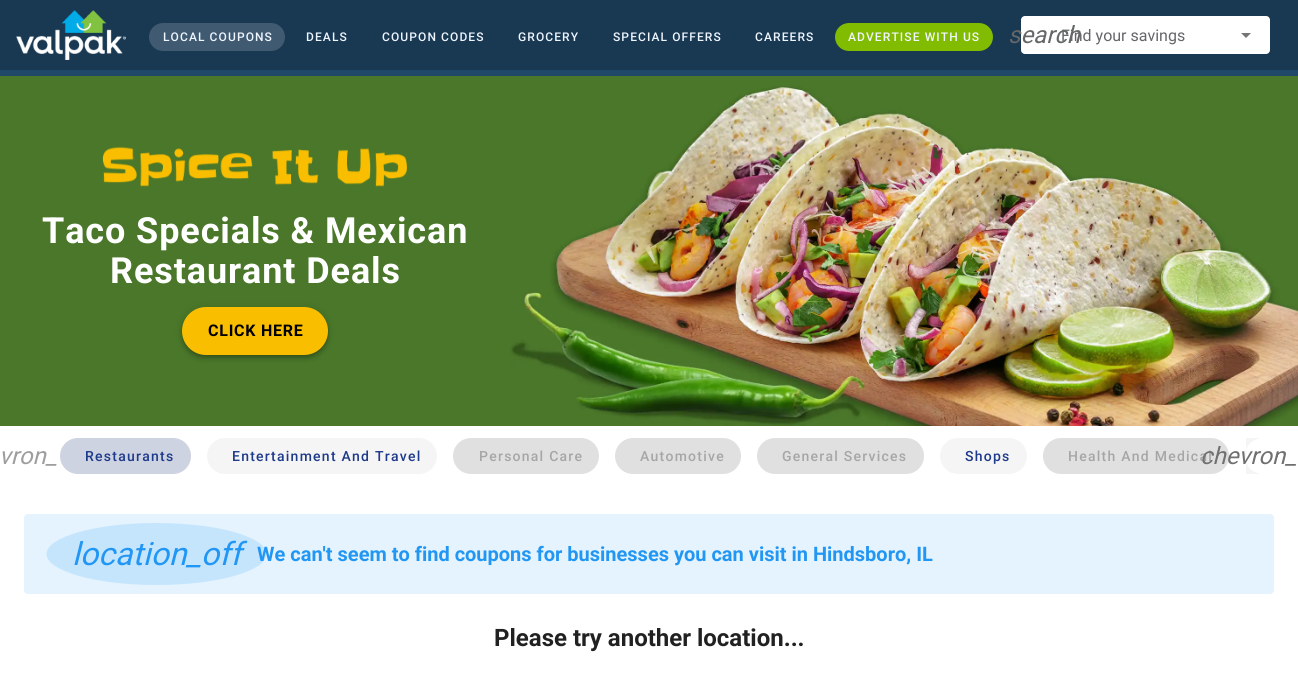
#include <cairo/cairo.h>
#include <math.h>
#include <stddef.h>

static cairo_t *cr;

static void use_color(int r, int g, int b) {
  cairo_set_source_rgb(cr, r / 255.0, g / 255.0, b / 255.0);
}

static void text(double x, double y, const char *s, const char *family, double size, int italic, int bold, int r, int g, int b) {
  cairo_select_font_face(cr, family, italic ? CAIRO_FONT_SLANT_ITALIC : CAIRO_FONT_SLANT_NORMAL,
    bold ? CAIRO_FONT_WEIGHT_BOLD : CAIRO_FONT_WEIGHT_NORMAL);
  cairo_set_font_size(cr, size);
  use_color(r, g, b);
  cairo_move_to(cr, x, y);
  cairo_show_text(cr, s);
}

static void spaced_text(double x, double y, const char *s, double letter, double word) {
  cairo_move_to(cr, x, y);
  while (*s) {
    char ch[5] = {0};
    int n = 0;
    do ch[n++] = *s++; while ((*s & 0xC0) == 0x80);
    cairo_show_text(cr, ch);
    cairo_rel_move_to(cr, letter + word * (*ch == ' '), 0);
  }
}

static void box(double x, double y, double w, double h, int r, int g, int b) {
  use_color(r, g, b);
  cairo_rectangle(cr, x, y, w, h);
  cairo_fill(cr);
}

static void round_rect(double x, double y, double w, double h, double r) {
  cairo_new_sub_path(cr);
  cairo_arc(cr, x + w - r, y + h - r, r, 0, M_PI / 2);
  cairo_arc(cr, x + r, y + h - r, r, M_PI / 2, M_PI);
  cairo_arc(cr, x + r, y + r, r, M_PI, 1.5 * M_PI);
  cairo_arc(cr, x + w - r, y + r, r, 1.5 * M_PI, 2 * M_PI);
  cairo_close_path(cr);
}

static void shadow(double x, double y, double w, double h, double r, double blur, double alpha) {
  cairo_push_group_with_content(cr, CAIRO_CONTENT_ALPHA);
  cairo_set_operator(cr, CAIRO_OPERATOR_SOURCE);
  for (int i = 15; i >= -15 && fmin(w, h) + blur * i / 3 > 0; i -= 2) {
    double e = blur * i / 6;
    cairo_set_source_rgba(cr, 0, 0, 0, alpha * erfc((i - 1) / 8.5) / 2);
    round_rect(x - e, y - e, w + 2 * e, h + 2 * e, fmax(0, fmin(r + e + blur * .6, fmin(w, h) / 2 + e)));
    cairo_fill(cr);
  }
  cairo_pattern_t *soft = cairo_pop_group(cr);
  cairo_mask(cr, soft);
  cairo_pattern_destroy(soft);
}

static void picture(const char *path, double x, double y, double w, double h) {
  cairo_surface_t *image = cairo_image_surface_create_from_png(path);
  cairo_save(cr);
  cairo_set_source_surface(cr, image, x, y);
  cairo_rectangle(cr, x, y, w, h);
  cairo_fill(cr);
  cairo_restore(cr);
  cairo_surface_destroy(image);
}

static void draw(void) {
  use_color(255, 255, 255);
  cairo_paint(cr);
  box(0, 0, 1298, 70, 25, 56, 82);
  picture("img_01.png", 16, 10, 110, 50);
  use_color(64, 90, 113);
  round_rect(149, 23, 136, 28, 14);
  cairo_fill(cr);
  use_color(130, 188, 0);
  round_rect(835, 23, 158, 28, 14);
  cairo_fill(cr);
  use_color(255, 255, 255);
  round_rect(1021, 16, 249, 38, 4);
  cairo_fill(cr);
  use_color(117, 117, 117);
  cairo_new_path(cr);
  cairo_move_to(cr, 1241, 33);
  cairo_line_to(cr, 1246, 38);
  cairo_line_to(cr, 1251, 33);
  cairo_close_path(cr);
  cairo_fill(cr);
  box(0, 70, 1298, 6, 32, 72, 105);
  box(0, 76, 1298, 350, 74, 119, 41);
  picture("img_02.png", 102, 146, 305, 41);
  use_color(0, 0, 0);
  shadow(182, 308, 146, 48, 24, 5, 0.12);
  shadow(182, 311, 146, 48, 24, 2.5, 0.14);
  shadow(183, 310, 144, 46, 23, 2, 0.2);
  use_color(249, 190, 0);
  round_rect(182, 307, 146, 48, 24);
  cairo_fill(cr);
  picture("img_03.png", 510, 86, 788, 340);
  use_color(245, 245, 245);
  round_rect(60, 438, 131, 36, 18);
  cairo_fill(cr);
  cairo_set_source_rgba(cr, 0.118, 0.227, 0.541, 0.18);
  round_rect(60, 438, 131, 36, 18);
  cairo_fill(cr);
  use_color(245, 245, 245);
  round_rect(207, 438, 230, 36, 18);
  cairo_fill(cr);
  use_color(224, 224, 224);
  round_rect(453, 438, 146, 36, 18);
  cairo_fill(cr);
  round_rect(615, 438, 126, 36, 18);
  cairo_fill(cr);
  round_rect(757, 438, 167, 36, 18);
  cairo_fill(cr);
  use_color(245, 245, 245);
  round_rect(940, 438, 87, 36, 18);
  cairo_fill(cr);
  use_color(224, 224, 224);
  round_rect(1043, 438, 186, 36, 18);
  cairo_fill(cr);
  use_color(245, 245, 245);
  cairo_new_path(cr);
  cairo_move_to(cr, 1263, 438);
  cairo_line_to(cr, 1246, 438);
  cairo_line_to(cr, 1246, 474);
  cairo_line_to(cr, 1263, 474);
  cairo_curve_to(cr, 1253, 474, 1245, 466, 1245, 456);
  cairo_curve_to(cr, 1245, 446, 1253, 438, 1263, 438);
  cairo_close_path(cr);
  cairo_fill(cr);
  cairo_set_source_rgba(cr, 0.129, 0.588, 0.953, 0.12);
  round_rect(24, 514, 1250, 80, 4);
  cairo_fill(cr);
  cairo_select_font_face(cr, "Roboto Medium", CAIRO_FONT_SLANT_NORMAL, CAIRO_FONT_WEIGHT_NORMAL);
  cairo_set_font_size(cr, 12);
  use_color(239, 246, 255);
  spaced_text(163, 41, "LOCAL COUPONS", 1.1, 0);
  spaced_text(306, 41, "DEALS", 1.1, 0);
  spaced_text(382, 41, "COUPON CODES", 1.1, 0);
  spaced_text(518, 41, "GROCERY", 1.1, 0);
  spaced_text(613, 41, "SPECIAL OFFERS", 1.1, 0);
  spaced_text(755, 41, "CAREERS", 1.1, 0);
  spaced_text(848, 41, "ADVERTISE WITH US", 1.1, 0);
  text(1008, 43, "search", "Roboto", 24, 1, 0, 100, 102, 104);
  text(1061, 41, "Find your savings", "Roboto", 16, 0, 0, 100, 102, 104);
  cairo_select_font_face(cr, "Roboto", CAIRO_FONT_SLANT_NORMAL, CAIRO_FONT_WEIGHT_BOLD);
  cairo_set_font_size(cr, 36);
  use_color(255, 255, 255);
  spaced_text(42, 243, "Taco Specials & Mexican", 0.9, 0);
  spaced_text(110, 283, "Restaurant Deals", 0.9, 0);
  cairo_set_font_size(cr, 16);
  use_color(0, 0, 0);
  spaced_text(208, 336, "CLICK HERE", 0.75, 0);
  text(-1, 464, "vron_", "Roboto", 24, 1, 0, 158, 158, 158);
  cairo_select_font_face(cr, "Roboto Medium", CAIRO_FONT_SLANT_NORMAL, CAIRO_FONT_WEIGHT_NORMAL);
  cairo_set_font_size(cr, 14);
  use_color(30, 58, 138);
  spaced_text(85, 461, "Restaurants", 1.25, 0);
  spaced_text(232, 461, "Entertainment And Travel", 1.25, 0);
  use_color(166, 166, 166);
  spaced_text(479, 461, "Personal Care", 1.25, 0);
  spaced_text(640, 461, "Automotive", 1.25, 0);
  spaced_text(782, 461, "General Services", 1.25, 0);
  use_color(30, 58, 138);
  spaced_text(965, 461, "Shops", 1.25, 0);
  use_color(166, 166, 166);
  spaced_text(1068, 461, "Health And Medical", 1.25, 0);
  text(1200, 464, "chevron_", "Roboto", 24, 1, 0, 112, 112, 112);
  text(72, 565, "location_off", "Roboto", 32, 1, 0, 33, 150, 243);
  text(257, 561, "We can't seem to find coupons for businesses you can visit in Hindsboro, IL", "Roboto", 20, 0, 1, 33, 150, 243);
  cairo_set_source_rgba(cr, 0.129, 0.588, 0.953, 0.16);
  cairo_new_path(cr);
  cairo_move_to(cr, 156.5, 523);
  cairo_curve_to(cr, 217.5, 523, 266.5, 537, 266.5, 554);
  cairo_curve_to(cr, 266.5, 571, 217.5, 585, 156.5, 585);
  cairo_curve_to(cr, 95.5, 585, 46.5, 571, 46.5, 554);
  cairo_curve_to(cr, 46.5, 537, 95.5, 523, 156.5, 523);
  cairo_close_path(cr);
  cairo_fill(cr);
  text(494, 646, "Please try another location...", "Roboto", 24, 0, 1, 33, 33, 33);
}

int main(void) {
  cairo_surface_t *surface = cairo_image_surface_create(CAIRO_FORMAT_RGB24, 1298, 673);
  cr = cairo_create(surface);
  cairo_font_options_t *options = cairo_font_options_create();
  cairo_font_options_set_hint_metrics(options, CAIRO_HINT_METRICS_OFF);
  cairo_font_options_set_hint_style(options, CAIRO_HINT_STYLE_NONE);
  cairo_set_font_options(cr, options);
  cairo_set_miter_limit(cr, 4);
  draw();
  cairo_surface_write_to_png(surface, "out.png");
  cairo_font_options_destroy(options);
  cairo_destroy(cr);
  cairo_surface_destroy(surface);
  return 0;
}
